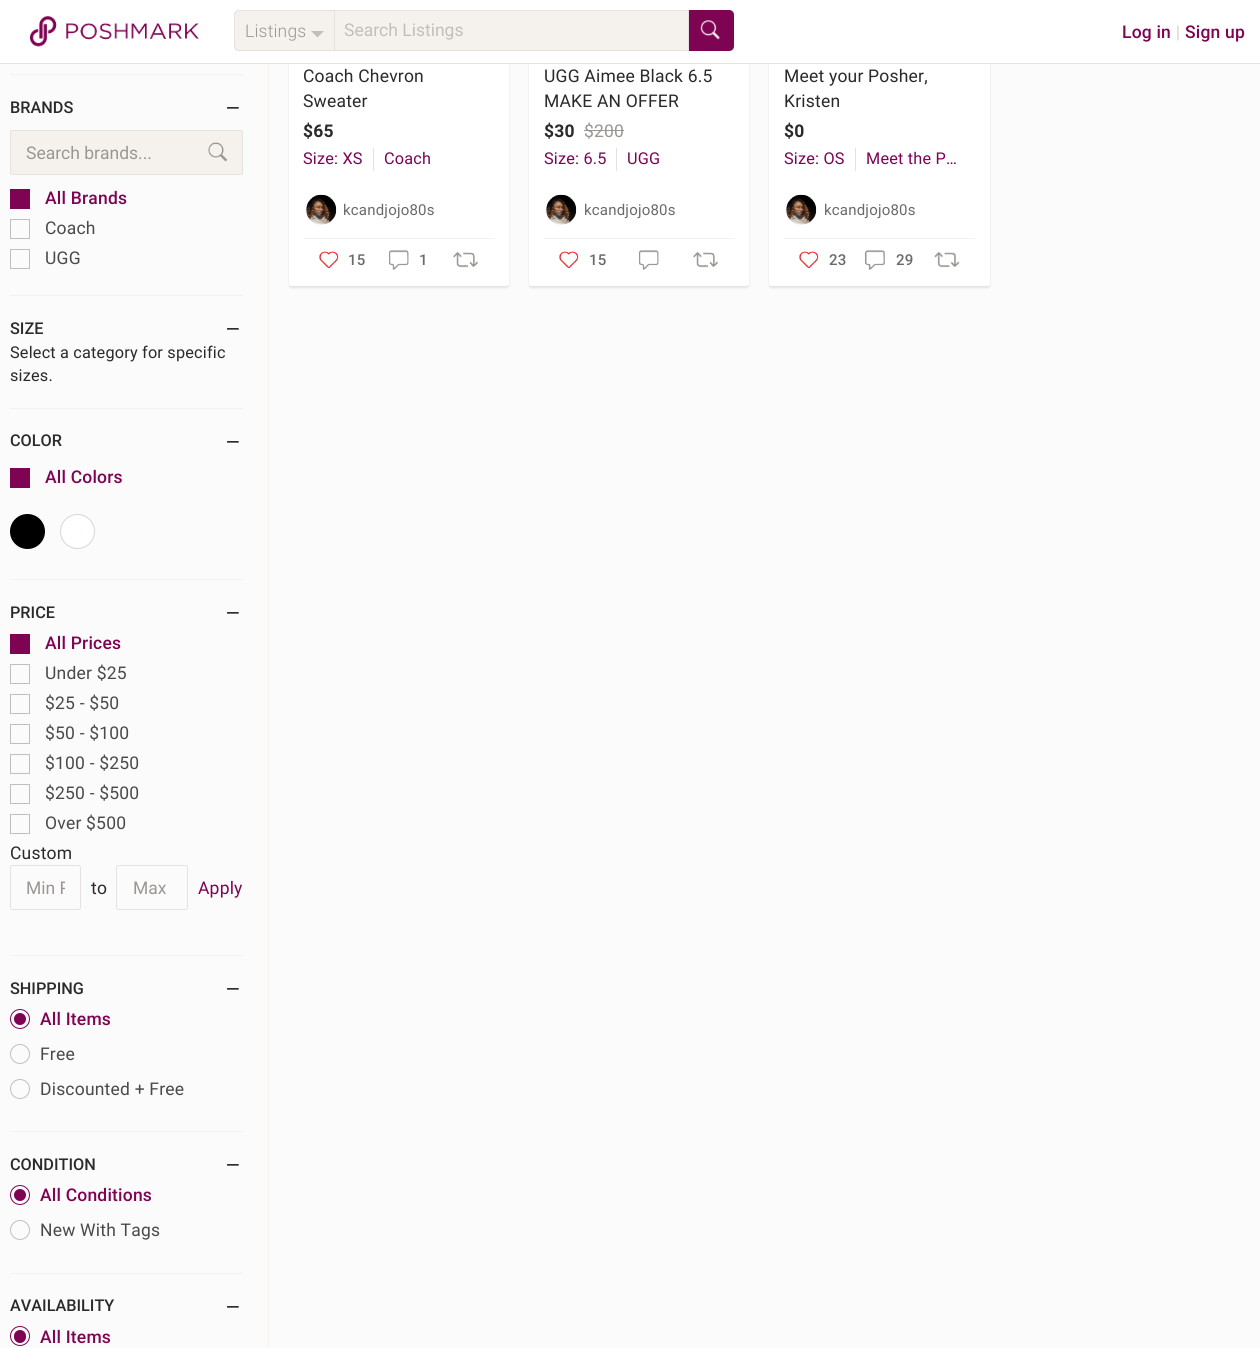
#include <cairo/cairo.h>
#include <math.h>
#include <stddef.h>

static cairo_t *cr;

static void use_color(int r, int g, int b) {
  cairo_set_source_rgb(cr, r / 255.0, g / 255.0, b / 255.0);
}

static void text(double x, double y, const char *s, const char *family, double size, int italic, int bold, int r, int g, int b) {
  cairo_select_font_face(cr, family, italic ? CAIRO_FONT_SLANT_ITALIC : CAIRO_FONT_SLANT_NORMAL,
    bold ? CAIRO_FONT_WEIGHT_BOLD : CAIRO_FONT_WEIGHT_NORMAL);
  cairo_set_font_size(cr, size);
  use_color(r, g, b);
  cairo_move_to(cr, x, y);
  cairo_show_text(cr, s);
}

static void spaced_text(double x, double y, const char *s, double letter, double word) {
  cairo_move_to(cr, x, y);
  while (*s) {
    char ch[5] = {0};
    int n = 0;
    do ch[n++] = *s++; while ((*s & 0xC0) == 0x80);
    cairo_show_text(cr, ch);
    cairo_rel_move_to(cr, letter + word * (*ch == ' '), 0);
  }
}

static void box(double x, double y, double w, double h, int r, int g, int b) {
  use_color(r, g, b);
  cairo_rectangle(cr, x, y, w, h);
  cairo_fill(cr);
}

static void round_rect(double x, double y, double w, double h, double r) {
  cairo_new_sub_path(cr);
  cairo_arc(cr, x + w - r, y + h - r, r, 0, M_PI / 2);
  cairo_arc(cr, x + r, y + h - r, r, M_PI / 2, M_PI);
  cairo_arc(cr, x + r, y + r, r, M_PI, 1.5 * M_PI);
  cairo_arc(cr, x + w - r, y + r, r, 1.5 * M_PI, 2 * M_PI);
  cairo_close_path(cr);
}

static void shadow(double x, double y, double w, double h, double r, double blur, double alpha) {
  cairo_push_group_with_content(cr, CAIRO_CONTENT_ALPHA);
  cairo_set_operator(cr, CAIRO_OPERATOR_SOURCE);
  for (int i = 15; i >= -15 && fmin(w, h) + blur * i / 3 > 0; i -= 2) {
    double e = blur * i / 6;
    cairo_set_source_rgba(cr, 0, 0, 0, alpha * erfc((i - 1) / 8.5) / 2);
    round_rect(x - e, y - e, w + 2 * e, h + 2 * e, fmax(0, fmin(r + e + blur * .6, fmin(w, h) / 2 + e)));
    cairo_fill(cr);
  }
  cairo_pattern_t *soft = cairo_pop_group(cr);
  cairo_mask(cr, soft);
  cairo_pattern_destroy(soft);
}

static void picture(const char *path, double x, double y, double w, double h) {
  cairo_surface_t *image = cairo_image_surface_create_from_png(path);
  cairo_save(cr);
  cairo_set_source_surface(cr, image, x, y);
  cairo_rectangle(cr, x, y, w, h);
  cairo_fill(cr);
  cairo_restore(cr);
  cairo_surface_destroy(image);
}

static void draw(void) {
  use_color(252, 251, 251);
  cairo_paint(cr);
  use_color(0, 0, 0);
  shadow(289, -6, 220, 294, 2.5, 1, 0.1);
  use_color(255, 255, 255);
  round_rect(289, -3, 220, 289, 2.5);
  cairo_fill(cr);
  use_color(0, 0, 0);
  shadow(529, -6, 220, 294, 2.5, 1, 0.1);
  use_color(255, 255, 255);
  round_rect(529, -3, 220, 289, 2.5);
  cairo_fill(cr);
  use_color(0, 0, 0);
  shadow(769, -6, 221, 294, 2.5, 1, 0.1);
  use_color(255, 255, 255);
  round_rect(769, -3, 221, 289, 2.5);
  cairo_fill(cr);
  box(0, 0, 1260, 63, 255, 255, 255);
  box(0, 63, 1260, 1, 230, 226, 223);
  picture("img_01.png", 30, 16, 169, 31);
  use_color(245, 242, 238);
  cairo_new_path(cr);
  cairo_move_to(cr, 239, 10);
  cairo_line_to(cr, 334, 10);
  cairo_line_to(cr, 334, 51);
  cairo_line_to(cr, 239, 51);
  cairo_curve_to(cr, 236, 51, 234, 49, 234, 46);
  cairo_line_to(cr, 234, 15);
  cairo_curve_to(cr, 234, 12, 236, 10, 239, 10);
  cairo_close_path(cr);
  cairo_fill(cr);
  use_color(230, 226, 223);
  cairo_set_fill_rule(cr, CAIRO_FILL_RULE_EVEN_ODD);
  cairo_new_path(cr);
  cairo_move_to(cr, 239, 10);
  cairo_line_to(cr, 334, 10);
  cairo_line_to(cr, 334, 51);
  cairo_line_to(cr, 239, 51);
  cairo_curve_to(cr, 236, 51, 234, 49, 234, 46);
  cairo_line_to(cr, 234, 15);
  cairo_curve_to(cr, 234, 12, 236, 10, 239, 10);
  cairo_close_path(cr);
  cairo_move_to(cr, 239, 11);
  cairo_line_to(cr, 334, 11);
  cairo_line_to(cr, 334, 50);
  cairo_line_to(cr, 239, 50);
  cairo_curve_to(cr, 237, 50, 235, 48, 235, 46);
  cairo_line_to(cr, 235, 15);
  cairo_curve_to(cr, 235, 13, 237, 11, 239, 11);
  cairo_close_path(cr);
  cairo_fill(cr);
  use_color(193, 191, 188);
  cairo_set_fill_rule(cr, CAIRO_FILL_RULE_WINDING);
  cairo_new_path(cr);
  cairo_move_to(cr, 311, 31);
  cairo_line_to(cr, 324, 31);
  cairo_line_to(cr, 317.5, 37.5);
  cairo_close_path(cr);
  cairo_fill(cr);
  use_color(127, 3, 83);
  cairo_new_path(cr);
  cairo_move_to(cr, 688, 10);
  cairo_line_to(cr, 729, 10);
  cairo_curve_to(cr, 732, 10, 734, 12, 734, 15);
  cairo_line_to(cr, 734, 46);
  cairo_curve_to(cr, 734, 49, 732, 51, 729, 51);
  cairo_line_to(cr, 688, 51);
  cairo_close_path(cr);
  cairo_fill(cr);
  use_color(245, 242, 238);
  cairo_rectangle(cr, 334.5, 10.5, 354, 40);
  cairo_fill_preserve(cr);
  use_color(230, 226, 223);
  cairo_set_line_width(cr, 1);
  cairo_stroke(cr);
  picture("img_02.png", 700, 20, 20, 20);
  box(268, 64, 1, 1284, 245, 242, 238);
  box(10, 74, 233, 1, 245, 242, 238);
  box(10, 295, 233, 1, 245, 242, 238);
  box(10, 130, 233, 45, 245, 242, 238);
  round_rect(10.5, 130.5, 232, 44, 2);
  use_color(230, 226, 223);
  cairo_stroke(cr);
  picture("img_03.png", 208, 142, 19, 20);
  box(10, 189, 20, 20, 127, 3, 83);
  cairo_rectangle(cr, 10.5, 219.5, 19, 19);
  use_color(193, 191, 188);
  cairo_stroke(cr);
  cairo_rectangle(cr, 10.5, 249.5, 19, 19);
  cairo_stroke(cr);
  box(10, 408, 233, 1, 245, 242, 238);
  box(10, 579, 233, 1, 245, 242, 238);
  box(10, 468, 20, 20, 127, 3, 83);
  use_color(0, 0, 0);
  cairo_arc(cr, 27.5, 531.5, 17.5, 0, 2 * M_PI);
  cairo_fill(cr);
  use_color(255, 255, 255);
  cairo_arc(cr, 77.5, 531.5, 17, 0, 2 * M_PI);
  cairo_fill_preserve(cr);
  use_color(217, 213, 210);
  cairo_stroke(cr);
  box(10, 955, 233, 1, 245, 242, 238);
  box(10, 634, 20, 20, 127, 3, 83);
  cairo_rectangle(cr, 10.5, 664.5, 19, 19);
  use_color(193, 191, 188);
  cairo_stroke(cr);
  cairo_rectangle(cr, 10.5, 694.5, 19, 19);
  cairo_stroke(cr);
  cairo_rectangle(cr, 10.5, 724.5, 19, 19);
  cairo_stroke(cr);
  cairo_rectangle(cr, 10.5, 754.5, 19, 19);
  cairo_stroke(cr);
  cairo_rectangle(cr, 10.5, 784.5, 19, 19);
  cairo_stroke(cr);
  cairo_rectangle(cr, 10.5, 814.5, 19, 19);
  cairo_stroke(cr);
  round_rect(10.5, 865.5, 70, 44, 2);
  use_color(230, 226, 223);
  cairo_stroke(cr);
  round_rect(116.5, 865.5, 71, 44, 2);
  cairo_stroke(cr);
  box(10, 1131, 233, 1, 245, 242, 238);
  cairo_arc(cr, 20, 1019, 9.5, 0, 2 * M_PI);
  use_color(127, 3, 83);
  cairo_stroke(cr);
  cairo_arc(cr, 20, 1019, 6, 0, 2 * M_PI);
  cairo_fill(cr);
  cairo_arc(cr, 20, 1054, 9.5, 0, 2 * M_PI);
  use_color(193, 191, 188);
  cairo_stroke(cr);
  cairo_arc(cr, 20, 1089, 9.5, 0, 2 * M_PI);
  cairo_stroke(cr);
  box(10, 1273, 233, 1, 245, 242, 238);
  cairo_arc(cr, 20, 1195, 9.5, 0, 2 * M_PI);
  use_color(127, 3, 83);
  cairo_stroke(cr);
  cairo_arc(cr, 20, 1195, 6, 0, 2 * M_PI);
  cairo_fill(cr);
  cairo_arc(cr, 20, 1230, 9.5, 0, 2 * M_PI);
  use_color(193, 191, 188);
  cairo_stroke(cr);
  cairo_arc(cr, 20, 1336, 9.5, 0, 2 * M_PI);
  use_color(127, 3, 83);
  cairo_stroke(cr);
  round_rect(14, 1330, 12, 13, 6);
  cairo_fill(cr);
  box(373, 148, 1, 23, 230, 226, 223);
  picture("img_04.png", 306, 194, 31, 31);
  box(304, 238, 190, 1, 245, 242, 238);
  picture("img_05.png", 319, 251, 20, 17);
  picture("img_06.png", 389, 250, 20, 20);
  picture("img_07.png", 453, 252, 25, 16);
  box(584, 130, 40, 1, 155, 150, 145);
  box(616, 148, 1, 23, 230, 226, 223);
  picture("img_08.png", 546, 194, 31, 31);
  box(544, 238, 190, 1, 245, 242, 238);
  picture("img_05.png", 559, 251, 20, 17);
  picture("img_06.png", 639, 250, 20, 20);
  picture("img_07.png", 693, 252, 25, 16);
  box(855, 148, 1, 23, 230, 226, 223);
  picture("img_04.png", 786, 194, 31, 31);
  box(784, 238, 191, 1, 245, 242, 238);
  picture("img_05.png", 799, 251, 20, 17);
  picture("img_09.png", 865, 250, 20, 20);
  picture("img_10.png", 934, 252, 26, 16);
  cairo_select_font_face(cr, "Roboto Light", CAIRO_FONT_SLANT_NORMAL, CAIRO_FONT_WEIGHT_NORMAL);
  cairo_set_font_size(cr, 17.5);
  use_color(155, 150, 145);
  spaced_text(245, 37, "Listings", 0.2, 0);
  text(344, 36, "Search Listings", "Roboto", 17.5, 0, 0, 193, 191, 188);
  cairo_select_font_face(cr, "Roboto Medium", CAIRO_FONT_SLANT_NORMAL, CAIRO_FONT_WEIGHT_NORMAL);
  use_color(127, 3, 83);
  spaced_text(1122, 38, "Log in", 0.2, 0);
  cairo_select_font_face(cr, "Roboto Light", CAIRO_FONT_SLANT_NORMAL, CAIRO_FONT_WEIGHT_NORMAL);
  use_color(193, 191, 188);
  spaced_text(1176, 38, "|", 0.2, 0);
  cairo_select_font_face(cr, "Roboto Medium", CAIRO_FONT_SLANT_NORMAL, CAIRO_FONT_WEIGHT_NORMAL);
  use_color(127, 3, 83);
  spaced_text(1185, 38, "Sign up", 0.2, 0);
  text(10, 113, "BRANDS", "Roboto Medium", 16.25, 0, 0, 42, 42, 42);
  cairo_set_font_size(cr, 17.5);
  spaced_text(226, 114, "—", 0.2, 0);
  text(26, 159, "Search brands...", "Roboto", 17.5, 0, 0, 155, 150, 145);
  cairo_select_font_face(cr, "Roboto Medium", CAIRO_FONT_SLANT_NORMAL, CAIRO_FONT_WEIGHT_NORMAL);
  use_color(127, 3, 83);
  spaced_text(45, 204, "All Brands", 0.2, 0);
  cairo_select_font_face(cr, "Roboto", CAIRO_FONT_SLANT_NORMAL, CAIRO_FONT_WEIGHT_NORMAL);
  use_color(74, 74, 74);
  spaced_text(45, 234, "Coach", 0.2, 0);
  spaced_text(45, 264, "UGG", 0.2, 0);
  text(10, 334, "SIZE", "Roboto Medium", 16.25, 0, 0, 42, 42, 42);
  cairo_set_font_size(cr, 17.5);
  spaced_text(226, 335, "—", 0.2, 0);
  cairo_select_font_face(cr, "Roboto", CAIRO_FONT_SLANT_NORMAL, CAIRO_FONT_WEIGHT_NORMAL);
  cairo_set_font_size(cr, 16.25);
  spaced_text(10, 358, "Select a category for specific", 0.2, 0);
  spaced_text(10, 381, "sizes.", 0.2, 0);
  text(10, 446, "COLOR", "Roboto Medium", 16.25, 0, 0, 42, 42, 42);
  cairo_set_font_size(cr, 17.5);
  spaced_text(226, 448, "—", 0.2, 0);
  use_color(127, 3, 83);
  spaced_text(45, 483, "All Colors", 0.2, 0);
  text(10, 618, "PRICE", "Roboto Medium", 16.25, 0, 0, 42, 42, 42);
  cairo_set_font_size(cr, 17.5);
  spaced_text(226, 619, "—", 0.2, 0);
  use_color(127, 3, 83);
  spaced_text(45, 649, "All Prices", 0.2, 0);
  cairo_select_font_face(cr, "Roboto", CAIRO_FONT_SLANT_NORMAL, CAIRO_FONT_WEIGHT_NORMAL);
  use_color(74, 74, 74);
  spaced_text(45, 679, "Under $25", 0.2, 0);
  spaced_text(45, 709, "$25 - $50", 0.2, 0);
  spaced_text(45, 739, "$50 - $100", 0.2, 0);
  spaced_text(45, 769, "$100 - $250", 0.2, 0);
  spaced_text(45, 799, "$250 - $500", 0.2, 0);
  spaced_text(45, 829, "Over $500", 0.2, 0);
  use_color(42, 42, 42);
  spaced_text(10, 859, "Custom", 0.2, 0);
  cairo_save(cr);
  cairo_rectangle(cr, 26, 878, 39, 20);
  cairo_clip(cr);
  text(26, 894, "Min P", "Roboto", 17.5, 0, 0, 155, 150, 145);
  cairo_restore(cr);
  spaced_text(91, 894, "to", 0.2, 0);
  text(133, 894, "Max", "Roboto", 17.5, 0, 0, 155, 150, 145);
  use_color(127, 3, 83);
  spaced_text(198, 894, "Apply", 0.2, 0);
  text(10, 994, "SHIPPING", "Roboto Medium", 16.25, 0, 0, 42, 42, 42);
  cairo_set_font_size(cr, 17.5);
  spaced_text(226, 995, "—", 0.2, 0);
  use_color(127, 3, 83);
  spaced_text(40, 1025, "All Items", 0.2, 0);
  cairo_select_font_face(cr, "Roboto", CAIRO_FONT_SLANT_NORMAL, CAIRO_FONT_WEIGHT_NORMAL);
  use_color(74, 74, 74);
  spaced_text(40, 1060, "Free", 0.2, 0);
  spaced_text(40, 1095, "Discounted + Free", 0.2, 0);
  text(10, 1170, "CONDITION", "Roboto Medium", 16.25, 0, 0, 42, 42, 42);
  cairo_set_font_size(cr, 17.5);
  spaced_text(226, 1171, "—", 0.2, 0);
  use_color(127, 3, 83);
  spaced_text(40, 1201, "All Conditions", 0.2, 0);
  cairo_select_font_face(cr, "Roboto", CAIRO_FONT_SLANT_NORMAL, CAIRO_FONT_WEIGHT_NORMAL);
  use_color(74, 74, 74);
  spaced_text(40, 1236, "New With Tags", 0.2, 0);
  text(10, 1311, "AVAILABILITY", "Roboto Medium", 16.25, 0, 0, 42, 42, 42);
  cairo_set_font_size(cr, 17.5);
  spaced_text(226, 1313, "—", 0.2, 0);
  use_color(127, 3, 83);
  spaced_text(40, 1343, "All Items", 0.2, 0);
  cairo_select_font_face(cr, "Roboto", CAIRO_FONT_SLANT_NORMAL, CAIRO_FONT_WEIGHT_NORMAL);
  use_color(42, 42, 42);
  spaced_text(303, 82, "Coach Chevron", 0.2, 0);
  spaced_text(303, 107, "Sweater", 0.2, 0);
  cairo_select_font_face(cr, "Roboto", CAIRO_FONT_SLANT_NORMAL, CAIRO_FONT_WEIGHT_BOLD);
  spaced_text(303, 137, "$65", 0.2, 0);
  cairo_select_font_face(cr, "Roboto", CAIRO_FONT_SLANT_NORMAL, CAIRO_FONT_WEIGHT_NORMAL);
  cairo_set_font_size(cr, 16.25);
  use_color(127, 3, 83);
  spaced_text(303, 164, "Size: XS", 0.2, 0);
  spaced_text(384, 164, "Coach", 0.2, 0);
  cairo_set_font_size(cr, 15);
  use_color(106, 106, 106);
  spaced_text(343, 215, "kcandjojo80s", 0.2, 0);
  cairo_select_font_face(cr, "Roboto Medium", CAIRO_FONT_SLANT_NORMAL, CAIRO_FONT_WEIGHT_NORMAL);
  spaced_text(348, 265, "15", 0.2, 0);
  spaced_text(419, 265, "1", 0.2, 0);
  cairo_select_font_face(cr, "Roboto", CAIRO_FONT_SLANT_NORMAL, CAIRO_FONT_WEIGHT_NORMAL);
  cairo_set_font_size(cr, 17.5);
  use_color(42, 42, 42);
  spaced_text(544, 82, "UGG Aimee Black 6.5", 0.2, 0);
  spaced_text(544, 107, "MAKE AN OFFER", 0.2, 0);
  cairo_select_font_face(cr, "Roboto", CAIRO_FONT_SLANT_NORMAL, CAIRO_FONT_WEIGHT_BOLD);
  spaced_text(544, 137, "$30", 0.2, 0);
  cairo_select_font_face(cr, "Roboto", CAIRO_FONT_SLANT_NORMAL, CAIRO_FONT_WEIGHT_NORMAL);
  use_color(155, 150, 145);
  spaced_text(584, 137, "$200", 0.2, 0);
  cairo_set_font_size(cr, 16.25);
  use_color(127, 3, 83);
  spaced_text(544, 164, "Size: 6.5", 0.2, 0);
  spaced_text(627, 164, "UGG", 0.2, 0);
  cairo_set_font_size(cr, 15);
  use_color(106, 106, 106);
  spaced_text(584, 215, "kcandjojo80s", 0.2, 0);
  cairo_select_font_face(cr, "Roboto Medium", CAIRO_FONT_SLANT_NORMAL, CAIRO_FONT_WEIGHT_NORMAL);
  spaced_text(589, 265, "15", 0.2, 0);
  cairo_select_font_face(cr, "Roboto", CAIRO_FONT_SLANT_NORMAL, CAIRO_FONT_WEIGHT_NORMAL);
  cairo_set_font_size(cr, 17.5);
  use_color(42, 42, 42);
  spaced_text(784, 82, "Meet your Posher,", 0.2, 0);
  spaced_text(784, 107, "Kristen", 0.2, 0);
  cairo_select_font_face(cr, "Roboto", CAIRO_FONT_SLANT_NORMAL, CAIRO_FONT_WEIGHT_BOLD);
  spaced_text(784, 137, "$0", 0.2, 0);
  cairo_select_font_face(cr, "Roboto", CAIRO_FONT_SLANT_NORMAL, CAIRO_FONT_WEIGHT_NORMAL);
  cairo_set_font_size(cr, 16.25);
  use_color(127, 3, 83);
  spaced_text(784, 164, "Size: OS", 0.2, 0);
  spaced_text(866, 164, "Meet the P…", 0.2, 0);
  cairo_set_font_size(cr, 15);
  use_color(106, 106, 106);
  spaced_text(824, 215, "kcandjojo80s", 0.2, 0);
  cairo_select_font_face(cr, "Roboto Medium", CAIRO_FONT_SLANT_NORMAL, CAIRO_FONT_WEIGHT_NORMAL);
  spaced_text(829, 265, "23", 0.2, 0);
  spaced_text(896, 265, "29", 0.2, 0);
}

int main(void) {
  cairo_surface_t *surface = cairo_image_surface_create(CAIRO_FORMAT_RGB24, 1260, 1348);
  cr = cairo_create(surface);
  cairo_font_options_t *options = cairo_font_options_create();
  cairo_font_options_set_hint_metrics(options, CAIRO_HINT_METRICS_OFF);
  cairo_font_options_set_hint_style(options, CAIRO_HINT_STYLE_NONE);
  cairo_set_font_options(cr, options);
  cairo_set_miter_limit(cr, 4);
  draw();
  cairo_surface_write_to_png(surface, "out.png");
  cairo_font_options_destroy(options);
  cairo_destroy(cr);
  cairo_surface_destroy(surface);
  return 0;
}
